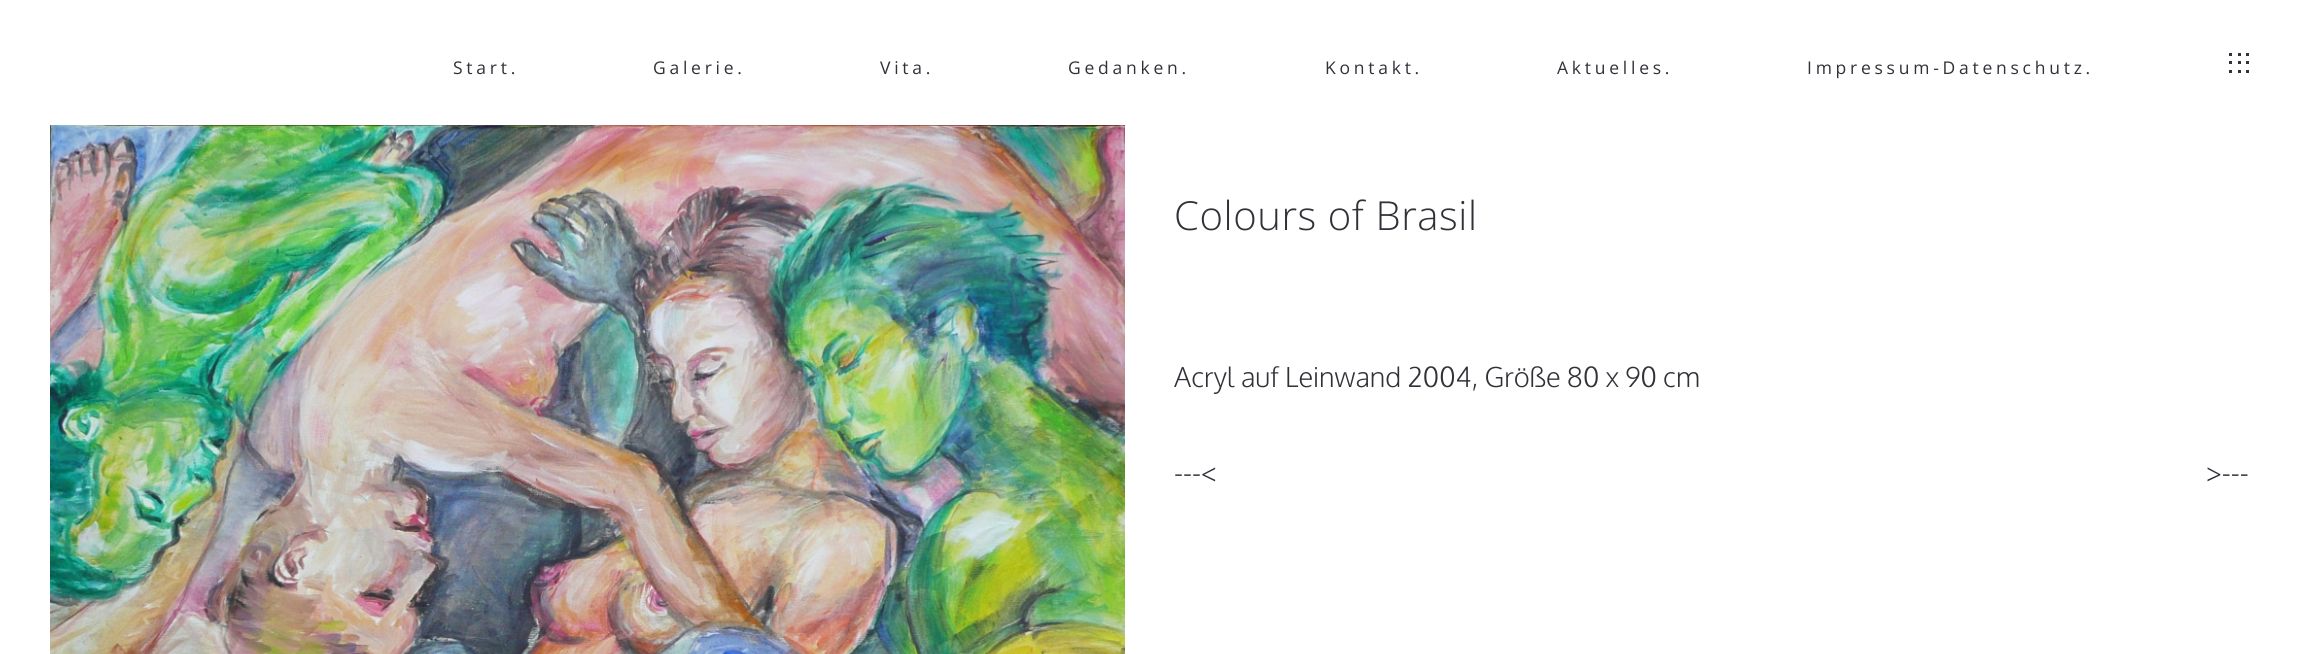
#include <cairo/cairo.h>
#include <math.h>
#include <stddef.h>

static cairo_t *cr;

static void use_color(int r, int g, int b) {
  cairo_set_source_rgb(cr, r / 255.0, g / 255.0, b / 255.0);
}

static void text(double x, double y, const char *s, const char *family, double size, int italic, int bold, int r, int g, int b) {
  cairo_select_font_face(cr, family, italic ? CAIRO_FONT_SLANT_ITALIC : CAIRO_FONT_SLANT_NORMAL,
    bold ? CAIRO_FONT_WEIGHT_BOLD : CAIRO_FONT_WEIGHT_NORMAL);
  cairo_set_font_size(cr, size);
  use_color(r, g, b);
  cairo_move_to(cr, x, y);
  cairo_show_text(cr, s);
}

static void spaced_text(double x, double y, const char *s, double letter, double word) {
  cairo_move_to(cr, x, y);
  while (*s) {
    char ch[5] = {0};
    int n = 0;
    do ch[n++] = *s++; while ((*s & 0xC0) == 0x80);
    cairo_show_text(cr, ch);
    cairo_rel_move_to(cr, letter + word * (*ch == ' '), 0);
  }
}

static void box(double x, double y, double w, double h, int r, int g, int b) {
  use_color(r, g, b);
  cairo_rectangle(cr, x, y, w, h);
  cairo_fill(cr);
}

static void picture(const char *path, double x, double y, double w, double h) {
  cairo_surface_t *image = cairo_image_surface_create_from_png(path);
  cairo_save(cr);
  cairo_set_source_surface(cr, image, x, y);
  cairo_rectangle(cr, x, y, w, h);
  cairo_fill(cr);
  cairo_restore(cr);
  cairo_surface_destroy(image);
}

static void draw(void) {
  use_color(255, 255, 255);
  cairo_paint(cr);
  box(2229, 53, 3, 3, 49, 49, 57);
  box(2238, 53, 3, 3, 49, 49, 57);
  box(2246, 53, 3, 3, 49, 49, 57);
  box(2229, 61, 3, 3, 49, 49, 57);
  box(2238, 61, 3, 3, 49, 49, 57);
  box(2246, 61, 3, 3, 49, 49, 57);
  box(2229, 70, 3, 3, 49, 49, 57);
  box(2238, 70, 3, 3, 49, 49, 57);
  box(2246, 70, 3, 3, 49, 49, 57);
  picture("img_01.png", 50, 125, 1075, 529);
  cairo_select_font_face(cr, "Open Sans", CAIRO_FONT_SLANT_NORMAL, CAIRO_FONT_WEIGHT_NORMAL);
  cairo_set_font_size(cr, 17.5);
  spaced_text(453, 74, "Start.", 3.75, 0);
  spaced_text(653, 74, "Galerie.", 3.75, 0);
  spaced_text(880, 74, "Vita.", 3.75, 0);
  spaced_text(1068, 74, "Gedanken.", 3.75, 0);
  spaced_text(1325, 74, "Kontakt.", 3.75, 0);
  spaced_text(1557, 74, "Aktuelles.", 3.75, 0);
  spaced_text(1807, 74, "Impressum-Datenschutz.", 3.75, 0);
  cairo_select_font_face(cr, "Open Sans Light", CAIRO_FONT_SLANT_NORMAL, CAIRO_FONT_WEIGHT_NORMAL);
  cairo_set_font_size(cr, 40);
  spaced_text(1174, 230, "Colours of Brasil", 0.6, 0);
  text(1174, 387, "Acryl auf Leinwand 2004, Größe 80 x 90 cm", "Oxygen Light", 27.5, 0, 0, 49, 49, 57);
  text(1174, 483, "---<", "Oxygen Light", 27.5, 0, 0, 49, 49, 57);
  text(2206, 483, ">---", "Oxygen Light", 27.5, 0, 0, 49, 49, 57);
}

int main(void) {
  cairo_surface_t *surface = cairo_image_surface_create(CAIRO_FORMAT_RGB24, 2298, 654);
  cr = cairo_create(surface);
  cairo_font_options_t *options = cairo_font_options_create();
  cairo_font_options_set_hint_metrics(options, CAIRO_HINT_METRICS_OFF);
  cairo_font_options_set_hint_style(options, CAIRO_HINT_STYLE_NONE);
  cairo_set_font_options(cr, options);
  cairo_set_miter_limit(cr, 4);
  draw();
  cairo_surface_write_to_png(surface, "out.png");
  cairo_font_options_destroy(options);
  cairo_destroy(cr);
  cairo_surface_destroy(surface);
  return 0;
}
